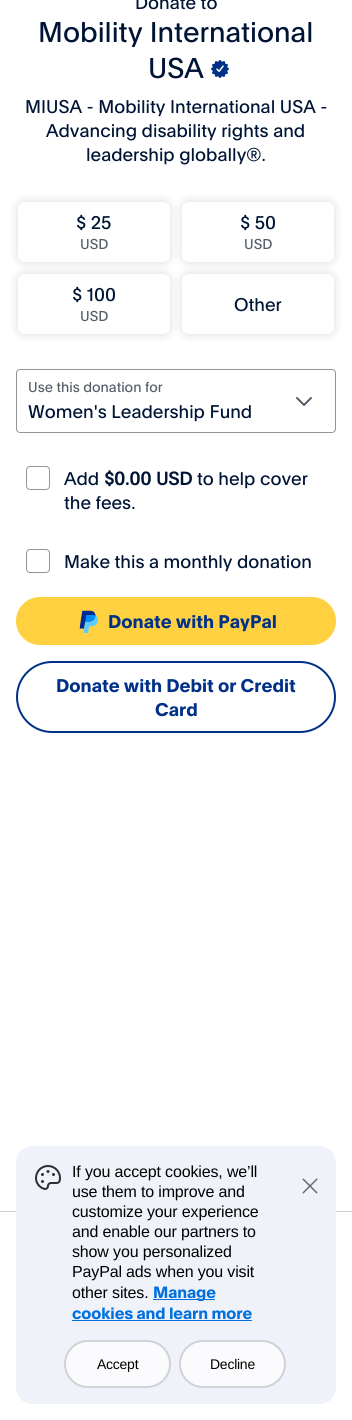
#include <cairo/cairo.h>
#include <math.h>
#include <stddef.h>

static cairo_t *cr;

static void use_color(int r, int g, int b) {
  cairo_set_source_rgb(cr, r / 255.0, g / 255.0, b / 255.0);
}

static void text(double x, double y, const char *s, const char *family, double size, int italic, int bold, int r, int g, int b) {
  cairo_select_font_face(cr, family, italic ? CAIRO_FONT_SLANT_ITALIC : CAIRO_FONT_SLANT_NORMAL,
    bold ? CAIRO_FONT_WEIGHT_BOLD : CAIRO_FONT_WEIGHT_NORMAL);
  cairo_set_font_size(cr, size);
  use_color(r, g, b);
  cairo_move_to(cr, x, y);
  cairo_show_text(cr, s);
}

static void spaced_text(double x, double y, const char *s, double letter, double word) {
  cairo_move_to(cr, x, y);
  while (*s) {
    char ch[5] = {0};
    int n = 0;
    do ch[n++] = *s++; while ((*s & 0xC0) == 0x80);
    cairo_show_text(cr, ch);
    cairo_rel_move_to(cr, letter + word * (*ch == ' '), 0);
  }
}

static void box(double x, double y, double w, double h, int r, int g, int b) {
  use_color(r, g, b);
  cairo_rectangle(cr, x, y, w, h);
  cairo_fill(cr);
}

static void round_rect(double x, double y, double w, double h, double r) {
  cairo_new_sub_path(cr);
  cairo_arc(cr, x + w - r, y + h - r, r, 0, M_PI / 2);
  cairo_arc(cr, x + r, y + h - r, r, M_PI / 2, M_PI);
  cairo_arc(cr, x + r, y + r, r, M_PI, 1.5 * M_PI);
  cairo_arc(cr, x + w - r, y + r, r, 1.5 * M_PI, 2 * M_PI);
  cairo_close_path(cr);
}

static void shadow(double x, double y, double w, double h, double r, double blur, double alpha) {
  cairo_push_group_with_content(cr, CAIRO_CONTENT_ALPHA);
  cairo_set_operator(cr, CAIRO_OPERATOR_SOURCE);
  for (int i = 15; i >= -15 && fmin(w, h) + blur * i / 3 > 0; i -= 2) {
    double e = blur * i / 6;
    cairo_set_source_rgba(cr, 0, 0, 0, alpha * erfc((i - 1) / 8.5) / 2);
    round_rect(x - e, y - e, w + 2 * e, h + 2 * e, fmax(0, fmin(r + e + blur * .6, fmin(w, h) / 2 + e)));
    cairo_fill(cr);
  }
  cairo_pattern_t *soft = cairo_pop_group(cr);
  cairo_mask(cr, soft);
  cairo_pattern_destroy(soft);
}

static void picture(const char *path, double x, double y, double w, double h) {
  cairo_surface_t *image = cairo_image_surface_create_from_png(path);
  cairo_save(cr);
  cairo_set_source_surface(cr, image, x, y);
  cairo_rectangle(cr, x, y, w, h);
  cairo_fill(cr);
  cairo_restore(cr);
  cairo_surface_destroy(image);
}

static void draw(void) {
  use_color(255, 255, 255);
  cairo_paint(cr);
  picture("img_01.png", 211, 60, 18, 18);
  use_color(0, 0, 0);
  shadow(18, 202, 152, 60, 6, 5, 0.15);
  use_color(255, 255, 255);
  round_rect(18, 202, 152, 60, 6);
  cairo_fill(cr);
  use_color(0, 0, 0);
  shadow(182, 202, 152, 60, 6, 5, 0.15);
  use_color(255, 255, 255);
  round_rect(182, 202, 152, 60, 6);
  cairo_fill(cr);
  use_color(0, 0, 0);
  shadow(18, 274, 152, 60, 6, 5, 0.15);
  use_color(255, 255, 255);
  round_rect(18, 274, 152, 60, 6);
  cairo_fill(cr);
  use_color(0, 0, 0);
  shadow(182, 274, 152, 60, 6, 5, 0.15);
  use_color(255, 255, 255);
  round_rect(182, 274, 152, 60, 6);
  cairo_fill(cr);
  round_rect(16.5, 369.5, 319, 63, 3.5);
  use_color(146, 148, 150);
  cairo_set_line_width(cr, 1);
  cairo_stroke(cr);
  picture("img_02.png", 296, 397, 16, 9);
  round_rect(26.5, 466.5, 23, 23, 3.5);
  cairo_stroke(cr);
  round_rect(26.5, 549.5, 23, 23, 3.5);
  cairo_stroke(cr);
  use_color(255, 209, 64);
  round_rect(17, 598, 318, 46, 23);
  cairo_fill_preserve(cr);
  cairo_set_line_width(cr, 2);
  cairo_stroke(cr);
  picture("img_03.png", 79, 610, 20, 23);
  round_rect(17, 662, 318, 70, 35);
  use_color(0, 48, 135);
  cairo_stroke(cr);
  box(0, 1211, 352, 1, 203, 210, 214);
  use_color(240, 242, 249);
  round_rect(16, 1146, 320, 258, 16);
  cairo_fill(cr);
  picture("img_04.png", 35, 1165, 26, 25);
  box(153, 1299, 62, 1, 0, 112, 224);
  box(72, 1320, 180, 1, 0, 112, 224);
  use_color(251, 251, 253);
  round_rect(65, 1341, 105, 46, 23);
  cairo_fill_preserve(cr);
  use_color(207, 211, 216);
  cairo_stroke(cr);
  use_color(251, 251, 253);
  round_rect(180, 1341, 105, 46, 23);
  cairo_fill_preserve(cr);
  use_color(207, 211, 216);
  cairo_stroke(cr);
  picture("img_05.png", 302, 1178, 16, 16);
  text(135, 9, "Donate to", "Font", 18, 0, 0, 0, 20, 53);
  text(38, 42, "Mobility International", "Font", 28, 0, 0, 0, 20, 53);
  text(148, 78, "USA", "Font", 28, 0, 0, 0, 20, 53);
  text(25, 113, "MIUSA - Mobility International USA -", "Font", 18, 0, 0, 0, 20, 53);
  text(46, 137, "Advancing disability rights and", "Font", 18, 0, 0, 0, 20, 53);
  text(86, 161, "leadership globally®.", "Font", 18, 0, 0, 0, 20, 53);
  text(76, 229, "$ 25", "Font", 18, 0, 0, 0, 20, 53);
  text(80, 249, "USD", "Font", 14, 0, 0, 84, 93, 104);
  text(240, 229, "$ 50", "Font", 18, 0, 0, 0, 20, 53);
  text(244, 249, "USD", "Font", 14, 0, 0, 84, 93, 104);
  text(72, 301, "$ 100", "Font", 18, 0, 0, 0, 20, 53);
  text(80, 321, "USD", "Font", 14, 0, 0, 84, 93, 104);
  text(234, 311, "Other", "Font", 18, 0, 0, 0, 20, 53);
  text(28, 392, "Use this donation for", "Font", 14, 0, 0, 84, 93, 104);
  text(28, 418, "Women's Leadership Fund", "Font", 18, 0, 0, 0, 20, 53);
  text(64, 485, "Add", "Font", 18, 0, 0, 0, 20, 53);
  text(104, 485, "$0.00 USD", "Font", 18, 0, 1, 0, 20, 53);
  text(197, 485, "to help cover", "Font", 18, 0, 0, 0, 20, 53);
  text(64, 509, "the fees.", "Font", 18, 0, 0, 0, 20, 53);
  text(64, 568, "Make this a monthly donation", "Font", 18, 0, 0, 0, 20, 53);
  text(108, 628, "Donate with PayPal", "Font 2", 18, 0, 1, 0, 48, 135);
  text(56, 692, "Donate with Debit or Credit", "Font 2", 18, 0, 1, 0, 48, 135);
  text(155, 716, "Card", "Font 2", 18, 0, 1, 0, 48, 135);
  cairo_select_font_face(cr, "Liberation Sans", CAIRO_FONT_SLANT_NORMAL, CAIRO_FONT_WEIGHT_NORMAL);
  cairo_set_font_size(cr, 16);
  use_color(0, 0, 0);
  spaced_text(72, 1177, "If you accept cookies, we’ll", -0.15, 0);
  spaced_text(72, 1197, "use them to improve and", -0.15, 0);
  spaced_text(72, 1217, "customize your experience", -0.15, 0);
  spaced_text(72, 1237, "and enable our partners to", -0.15, 0);
  spaced_text(72, 1257, "show you personalized", -0.15, 0);
  spaced_text(72, 1277, "PayPal ads when you visit", -0.15, 0);
  spaced_text(72, 1298, "other sites.", -0.15, 0);
  cairo_select_font_face(cr, "Font 2", CAIRO_FONT_SLANT_NORMAL, CAIRO_FONT_WEIGHT_BOLD);
  use_color(0, 112, 224);
  spaced_text(153, 1298, "Manage", -0.15, 0);
  spaced_text(72, 1319, "cookies and learn more", -0.15, 0);
  cairo_select_font_face(cr, "Liberation Sans", CAIRO_FONT_SLANT_NORMAL, CAIRO_FONT_WEIGHT_NORMAL);
  cairo_set_font_size(cr, 14);
  use_color(0, 0, 0);
  spaced_text(97, 1369, "Accept", -0.25, 0);
  spaced_text(210, 1369, "Decline", -0.25, 0);
}

int main(void) {
  cairo_surface_t *surface = cairo_image_surface_create(CAIRO_FORMAT_RGB24, 352, 1420);
  cr = cairo_create(surface);
  cairo_font_options_t *options = cairo_font_options_create();
  cairo_font_options_set_hint_metrics(options, CAIRO_HINT_METRICS_OFF);
  cairo_font_options_set_hint_style(options, CAIRO_HINT_STYLE_NONE);
  cairo_set_font_options(cr, options);
  cairo_set_miter_limit(cr, 4);
  draw();
  cairo_surface_write_to_png(surface, "out.png");
  cairo_font_options_destroy(options);
  cairo_destroy(cr);
  cairo_surface_destroy(surface);
  return 0;
}
